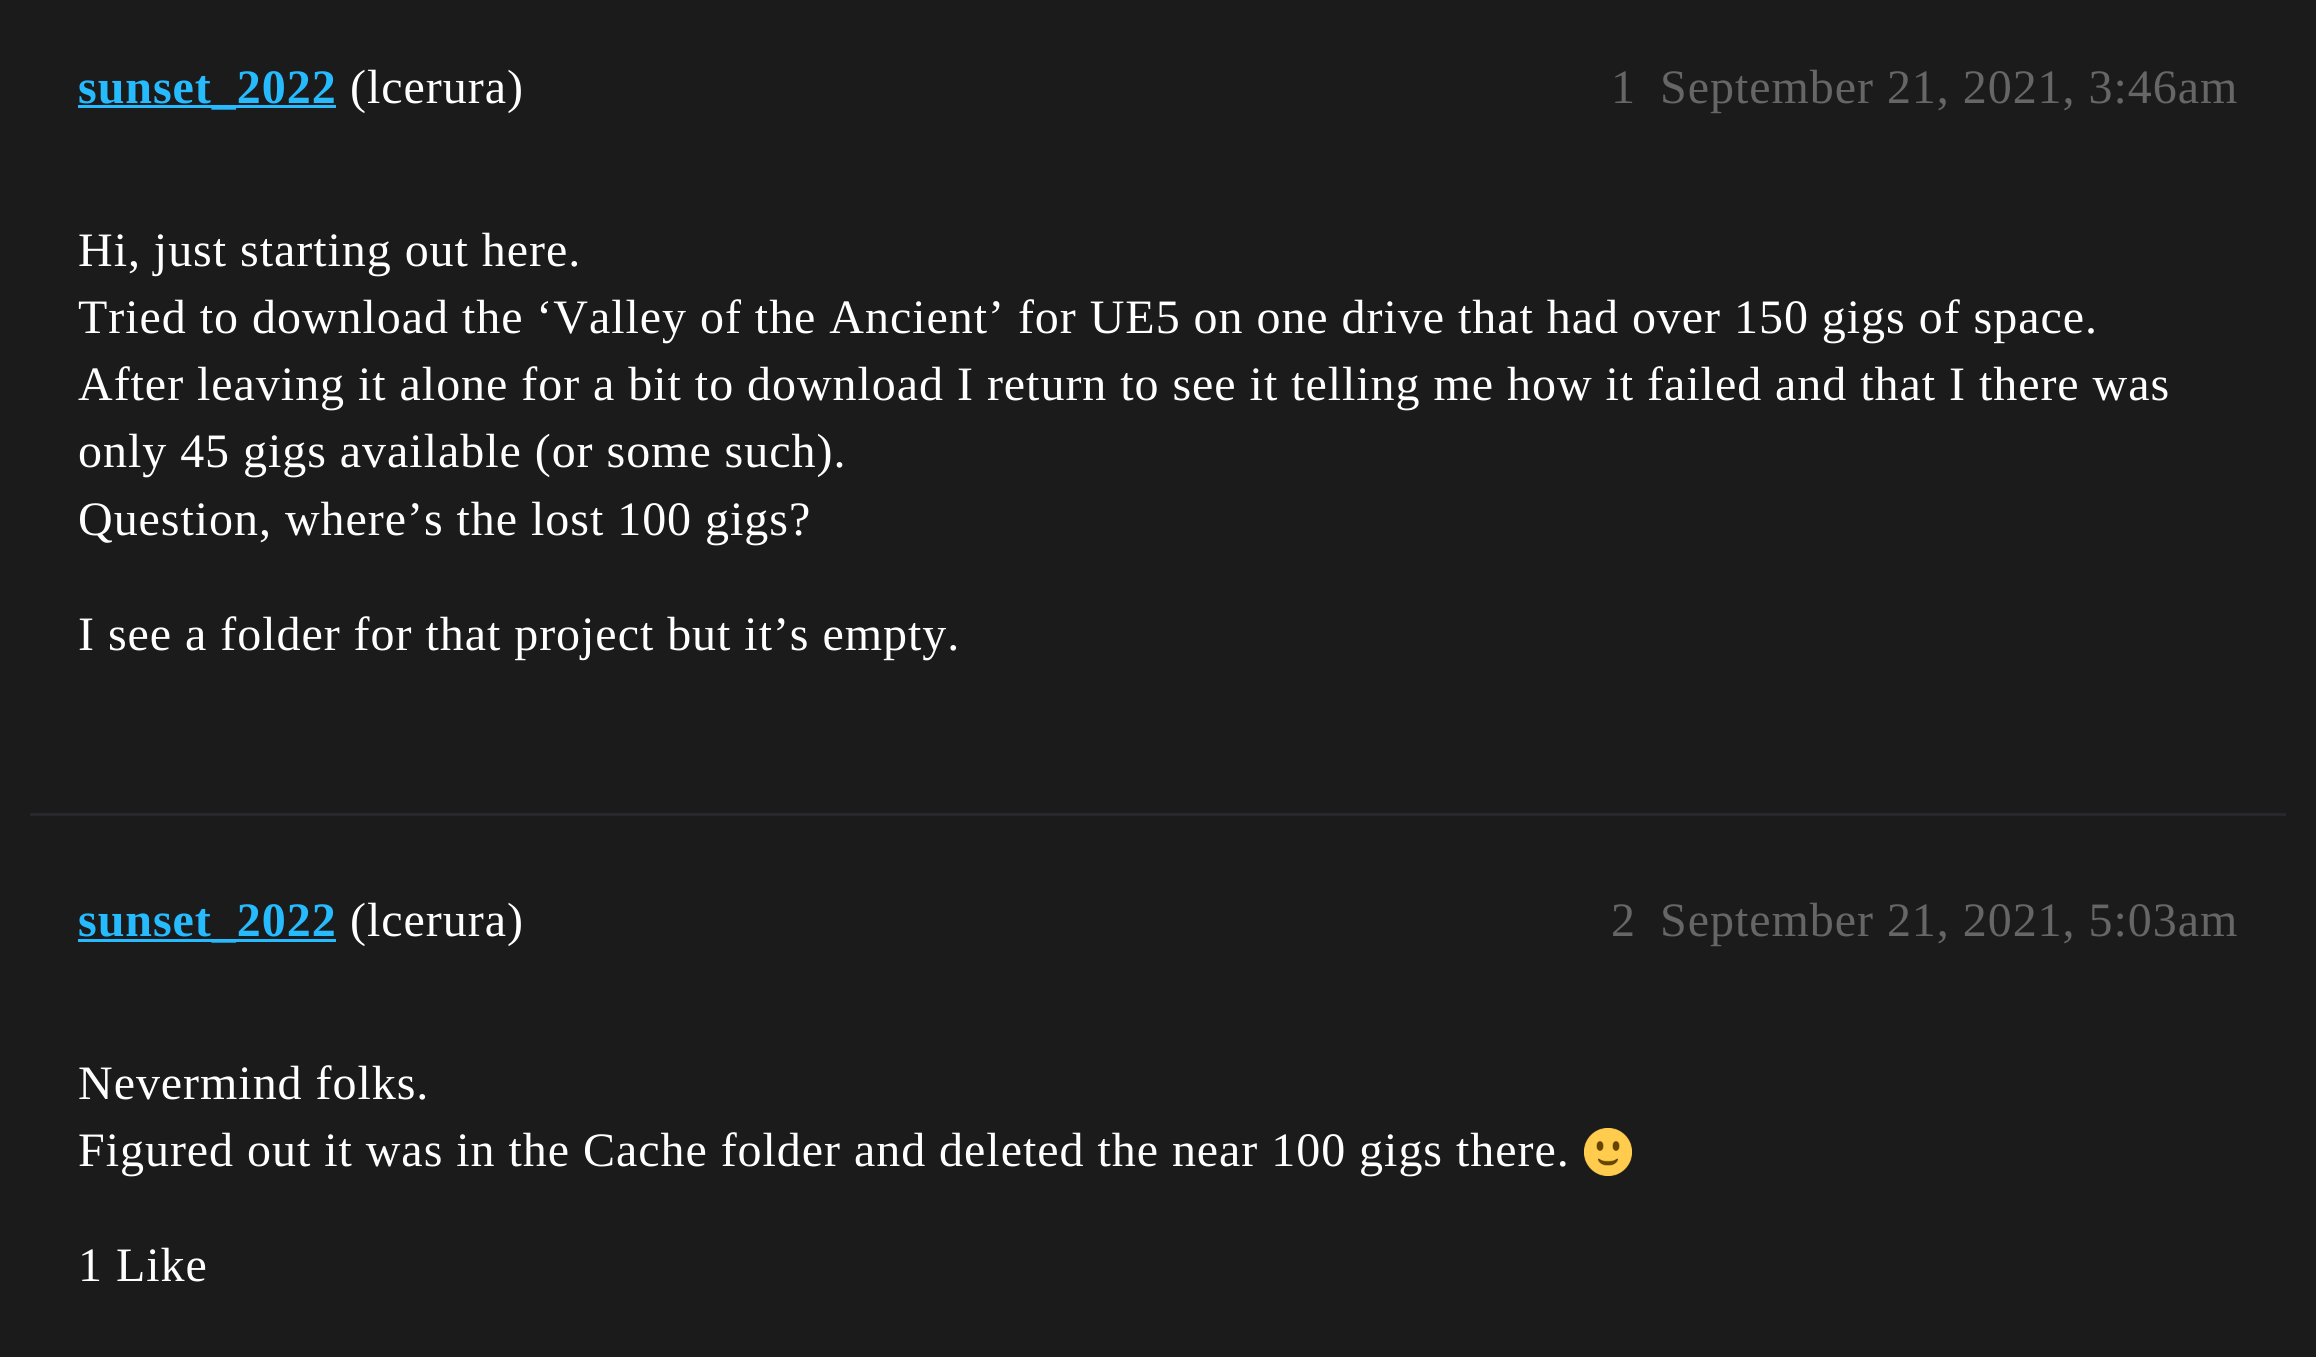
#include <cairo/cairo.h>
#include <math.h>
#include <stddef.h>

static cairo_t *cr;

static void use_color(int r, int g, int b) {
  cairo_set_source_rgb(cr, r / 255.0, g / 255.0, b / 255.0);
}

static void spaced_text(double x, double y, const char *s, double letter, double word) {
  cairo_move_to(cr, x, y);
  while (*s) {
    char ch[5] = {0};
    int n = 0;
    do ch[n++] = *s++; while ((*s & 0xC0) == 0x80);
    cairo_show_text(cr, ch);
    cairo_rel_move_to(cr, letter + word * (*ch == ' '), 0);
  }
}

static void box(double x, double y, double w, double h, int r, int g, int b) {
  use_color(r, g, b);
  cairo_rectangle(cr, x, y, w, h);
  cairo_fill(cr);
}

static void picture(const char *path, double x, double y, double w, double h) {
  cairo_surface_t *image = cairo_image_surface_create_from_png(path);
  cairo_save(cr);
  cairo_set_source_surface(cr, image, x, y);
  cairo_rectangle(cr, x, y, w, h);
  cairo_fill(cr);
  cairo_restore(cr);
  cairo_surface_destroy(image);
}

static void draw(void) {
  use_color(27, 27, 27);
  cairo_paint(cr);
  box(78, 105, 258, 3, 38, 187, 255);
  box(30, 813, 2256, 3, 40, 40, 44);
  box(78, 939, 258, 3, 38, 187, 255);
  picture("img_01.png", 1584, 1128, 48, 48);
  cairo_select_font_face(cr, "Liberation Serif", CAIRO_FONT_SLANT_NORMAL, CAIRO_FONT_WEIGHT_BOLD);
  cairo_set_font_size(cr, 48);
  spaced_text(78, 103, "sunset_2022", 0.96, 0);
  cairo_select_font_face(cr, "Liberation Serif", CAIRO_FONT_SLANT_NORMAL, CAIRO_FONT_WEIGHT_NORMAL);
  use_color(255, 255, 255);
  spaced_text(350, 103, "(lcerura)", 0.96, 0);
  use_color(102, 102, 102);
  spaced_text(1611, 103, "1", 0.96, 0);
  spaced_text(1660, 103, "September 21, 2021, 3:46am", 0.96, 0);
  use_color(255, 255, 255);
  spaced_text(78, 266, "Hi, just starting out here.", 0.96, 0);
  spaced_text(78, 333, "Tried to download the ‘Valley of the Ancient’ for UE5 on one drive that had over 150 gigs of space.", 0.96, 0);
  spaced_text(78, 400, "After leaving it alone for a bit to download I return to see it telling me how it failed and that I there was", 0.96, 0);
  spaced_text(78, 467, "only 45 gigs available (or some such).", 0.96, 0);
  spaced_text(78, 535, "Question, where’s the lost 100 gigs?", 0.96, 0);
  spaced_text(78, 650, "I see a folder for that project but it’s empty.", 0.96, 0);
  cairo_select_font_face(cr, "Liberation Serif", CAIRO_FONT_SLANT_NORMAL, CAIRO_FONT_WEIGHT_BOLD);
  use_color(38, 187, 255);
  spaced_text(78, 936, "sunset_2022", 0.96, 0);
  cairo_select_font_face(cr, "Liberation Serif", CAIRO_FONT_SLANT_NORMAL, CAIRO_FONT_WEIGHT_NORMAL);
  use_color(255, 255, 255);
  spaced_text(350, 936, "(lcerura)", 0.96, 0);
  use_color(102, 102, 102);
  spaced_text(1611, 936, "2", 0.96, 0);
  spaced_text(1660, 936, "September 21, 2021, 5:03am", 0.96, 0);
  use_color(255, 255, 255);
  spaced_text(78, 1099, "Nevermind folks.", 0.96, 0);
  spaced_text(78, 1166, "Figured out it was in the Cache folder and deleted the near 100 gigs there.", 0.96, 0);
  spaced_text(78, 1281, "1 Like", 0.96, 0);
}

int main(void) {
  cairo_surface_t *surface = cairo_image_surface_create(CAIRO_FORMAT_RGB24, 2316, 1357);
  cr = cairo_create(surface);
  cairo_font_options_t *options = cairo_font_options_create();
  cairo_font_options_set_hint_metrics(options, CAIRO_HINT_METRICS_OFF);
  cairo_font_options_set_hint_style(options, CAIRO_HINT_STYLE_NONE);
  cairo_set_font_options(cr, options);
  cairo_set_miter_limit(cr, 4);
  draw();
  cairo_surface_write_to_png(surface, "out.png");
  cairo_font_options_destroy(options);
  cairo_destroy(cr);
  cairo_surface_destroy(surface);
  return 0;
}
